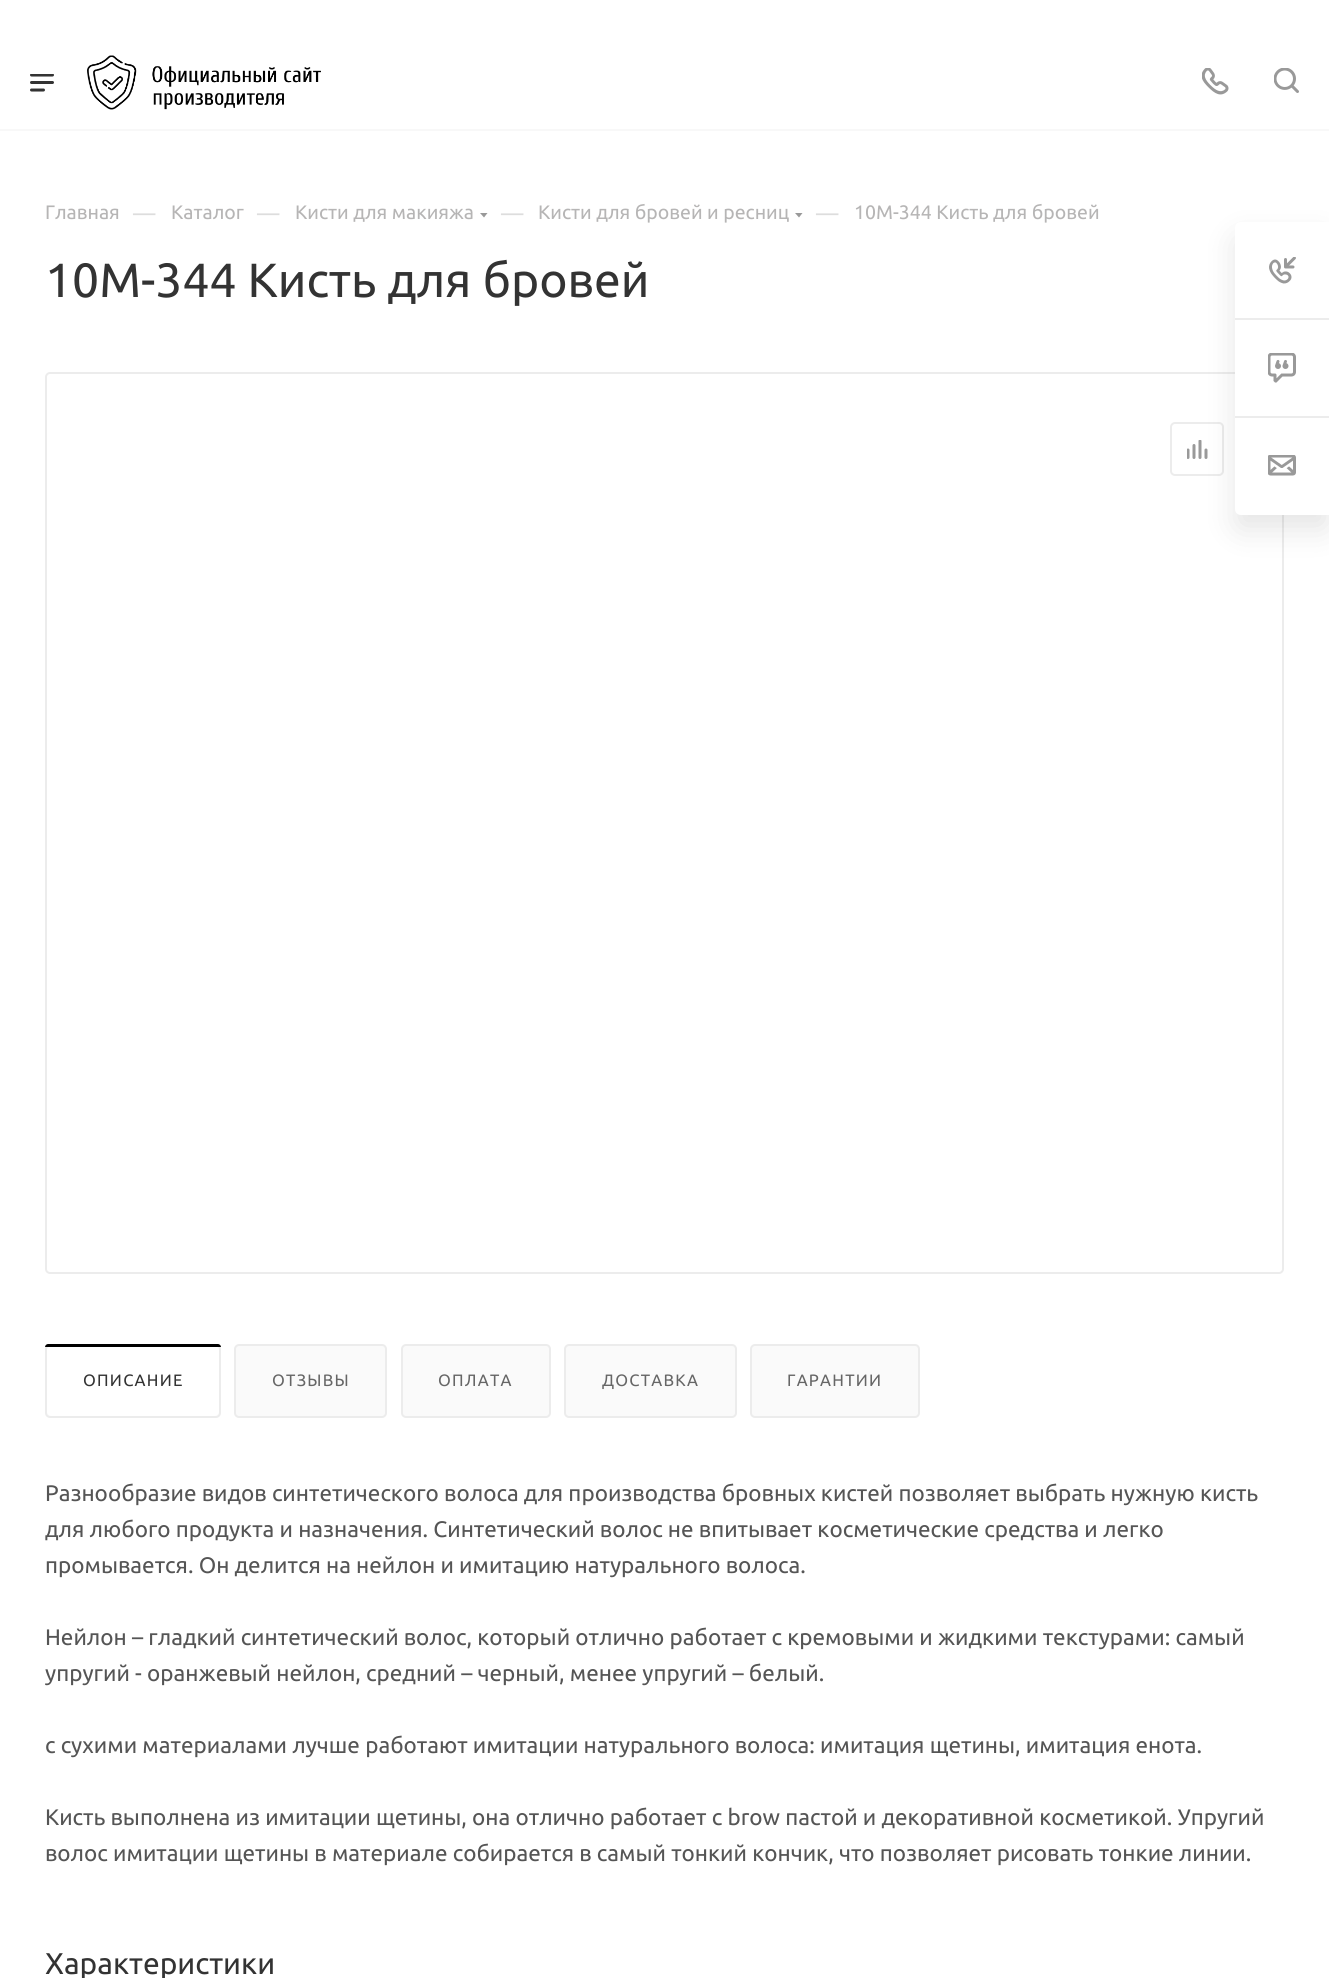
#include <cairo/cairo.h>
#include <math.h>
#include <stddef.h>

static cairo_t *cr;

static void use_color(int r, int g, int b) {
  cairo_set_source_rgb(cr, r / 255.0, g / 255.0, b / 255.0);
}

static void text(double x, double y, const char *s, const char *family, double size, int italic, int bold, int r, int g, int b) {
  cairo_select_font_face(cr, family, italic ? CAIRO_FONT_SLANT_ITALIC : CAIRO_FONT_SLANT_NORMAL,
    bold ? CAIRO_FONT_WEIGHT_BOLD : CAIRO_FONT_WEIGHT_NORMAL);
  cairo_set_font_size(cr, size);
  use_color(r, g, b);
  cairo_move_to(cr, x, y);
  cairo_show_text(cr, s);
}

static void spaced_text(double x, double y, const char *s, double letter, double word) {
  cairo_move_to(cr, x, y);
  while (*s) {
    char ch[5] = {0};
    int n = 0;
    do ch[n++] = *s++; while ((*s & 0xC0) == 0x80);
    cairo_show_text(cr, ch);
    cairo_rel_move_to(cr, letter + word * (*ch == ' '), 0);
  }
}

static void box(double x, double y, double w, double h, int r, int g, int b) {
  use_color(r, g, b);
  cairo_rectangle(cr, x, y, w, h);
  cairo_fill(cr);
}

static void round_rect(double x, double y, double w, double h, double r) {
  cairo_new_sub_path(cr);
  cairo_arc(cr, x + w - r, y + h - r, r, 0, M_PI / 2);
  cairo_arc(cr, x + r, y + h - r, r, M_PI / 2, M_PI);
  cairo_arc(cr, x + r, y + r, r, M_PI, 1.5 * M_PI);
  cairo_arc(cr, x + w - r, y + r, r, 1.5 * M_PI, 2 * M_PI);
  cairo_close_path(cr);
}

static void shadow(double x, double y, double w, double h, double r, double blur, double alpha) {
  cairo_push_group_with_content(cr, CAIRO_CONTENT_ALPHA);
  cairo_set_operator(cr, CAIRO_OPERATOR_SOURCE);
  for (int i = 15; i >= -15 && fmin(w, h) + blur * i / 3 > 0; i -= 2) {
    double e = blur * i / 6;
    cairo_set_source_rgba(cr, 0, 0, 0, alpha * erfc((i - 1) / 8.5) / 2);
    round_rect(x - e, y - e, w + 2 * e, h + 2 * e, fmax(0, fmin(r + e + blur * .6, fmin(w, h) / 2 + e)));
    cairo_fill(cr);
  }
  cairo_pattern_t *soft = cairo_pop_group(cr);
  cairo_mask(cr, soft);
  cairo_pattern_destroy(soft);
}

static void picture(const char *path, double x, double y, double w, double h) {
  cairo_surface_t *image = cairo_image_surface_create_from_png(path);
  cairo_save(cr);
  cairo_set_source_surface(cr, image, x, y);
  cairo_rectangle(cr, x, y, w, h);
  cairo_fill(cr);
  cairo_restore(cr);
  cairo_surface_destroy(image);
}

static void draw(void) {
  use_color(255, 255, 255);
  cairo_paint(cr);
  round_rect(46, 373, 1237, 900, 4);
  use_color(236, 236, 236);
  cairo_stroke(cr);
  round_rect(1171, 423, 52, 52, 4);
  cairo_stroke(cr);
  picture("img_08.png", 1187, 440, 21, 19);
  use_color(0, 0, 0);
  shadow(1235, 237, 94, 293, 6, 15, 0.1);
  use_color(255, 255, 255);
  cairo_new_path(cr);
  cairo_move_to(cr, 1241, 222);
  cairo_line_to(cr, 1329, 222);
  cairo_line_to(cr, 1329, 515);
  cairo_line_to(cr, 1241, 515);
  cairo_curve_to(cr, 1237.5, 515, 1235, 512.5, 1235, 509);
  cairo_line_to(cr, 1235, 228);
  cairo_curve_to(cr, 1235, 224.5, 1237.5, 222, 1241, 222);
  cairo_close_path(cr);
  cairo_fill(cr);
  box(1235, 318, 94, 2, 236, 236, 236);
  picture("img_01.png", 1269, 257, 27, 27);
  box(1235, 416, 94, 2, 236, 236, 236);
  picture("img_02.png", 1268, 353, 28, 30);
  picture("img_03.png", 1268, 455, 28, 21);
  box(0, 129, 1329, 2, 248, 248, 248);
  picture("img_04.png", 30, 74, 24, 18);
  picture("img_05.png", 87, 55, 234, 55);
  picture("img_06.png", 1202, 68, 27, 27);
  picture("img_07.png", 1274, 68, 25, 25);
  use_color(153, 153, 153);
  cairo_set_fill_rule(cr, CAIRO_FILL_RULE_EVEN_ODD);
  cairo_new_path(cr);
  cairo_move_to(cr, 480, 213);
  cairo_line_to(cr, 487.5, 213);
  cairo_line_to(cr, 484, 217.5);
  cairo_close_path(cr);
  cairo_fill(cr);
  cairo_new_path(cr);
  cairo_move_to(cr, 795, 213);
  cairo_line_to(cr, 802.5, 213);
  cairo_line_to(cr, 799, 217.5);
  cairo_close_path(cr);
  cairo_fill(cr);
  use_color(250, 250, 250);
  round_rect(46, 1345, 174, 72, 4);
  cairo_fill_preserve(cr);
  use_color(236, 236, 236);
  cairo_stroke(cr);
  use_color(255, 255, 255);
  round_rect(47, 1346, 172, 70, 5);
  cairo_fill(cr);
  use_color(0, 0, 0);
  cairo_new_path(cr);
  cairo_move_to(cr, 48, 1344);
  cairo_line_to(cr, 218, 1344);
  cairo_curve_to(cr, 219.5, 1344, 221, 1345.5, 221, 1347);
  cairo_line_to(cr, 45, 1347);
  cairo_curve_to(cr, 45, 1345.5, 46.5, 1344, 48, 1344);
  cairo_close_path(cr);
  cairo_fill(cr);
  use_color(250, 250, 250);
  round_rect(235, 1345, 151, 72, 4);
  cairo_fill_preserve(cr);
  use_color(236, 236, 236);
  cairo_stroke(cr);
  use_color(250, 250, 250);
  round_rect(402, 1345, 148, 72, 4);
  cairo_fill_preserve(cr);
  use_color(236, 236, 236);
  cairo_stroke(cr);
  use_color(250, 250, 250);
  round_rect(565, 1345, 171, 72, 4);
  cairo_fill_preserve(cr);
  use_color(236, 236, 236);
  cairo_stroke(cr);
  use_color(250, 250, 250);
  round_rect(751, 1345, 168, 72, 4);
  cairo_fill_preserve(cr);
  use_color(236, 236, 236);
  cairo_stroke(cr);
  text(45, 219, "Главная", "Ubuntu", 19.5, 0, 0, 182, 181, 181);
  text(133, 221, "—", "Ubuntu", 22.5, 0, 0, 221, 221, 221);
  text(171, 219, "Каталог", "Ubuntu", 19.5, 0, 0, 182, 181, 181);
  text(257, 221, "—", "Ubuntu", 22.5, 0, 0, 221, 221, 221);
  text(295, 219, "Кисти для макияжа", "Ubuntu", 19.5, 0, 0, 182, 181, 181);
  text(501, 221, "—", "Ubuntu", 22.5, 0, 0, 221, 221, 221);
  text(538, 219, "Кисти для бровей и ресниц", "Ubuntu", 19.5, 0, 0, 182, 181, 181);
  text(816, 221, "—", "Ubuntu", 22.5, 0, 0, 221, 221, 221);
  text(854, 219, "10М-344 Кисть для бровей", "Ubuntu", 19.5, 0, 0, 182, 181, 181);
  text(45, 297, "10М-344 Кисть для бровей", "Ubuntu", 48, 0, 0, 51, 51, 51);
  cairo_set_font_size(cr, 16.5);
  spaced_text(83, 1386, "ОПИСАНИЕ", 1.25, 0);
  use_color(102, 102, 102);
  spaced_text(272, 1386, "ОТЗЫВЫ", 1.25, 0);
  spaced_text(438, 1386, "ОПЛАТА", 1.25, 0);
  spaced_text(602, 1386, "ДОСТАВКА", 1.25, 0);
  spaced_text(787, 1386, "ГАРАНТИИ", 1.25, 0);
  text(45, 1501, "Разнообразие видов синтетического волоса для производства бровных кистей позволяет выбрать нужную кисть", "Ubuntu", 22.5, 0, 0, 85, 85, 85);
  text(45, 1537, "для любого продукта и назначения. Синтетический волос не впитывает косметические средства и легко", "Ubuntu", 22.5, 0, 0, 85, 85, 85);
  text(45, 1573, "промывается. Он делится на нейлон и имитацию натурального волоса.", "Ubuntu", 22.5, 0, 0, 85, 85, 85);
  text(45, 1645, "Нейлон – гладкий синтетический волос, который отлично работает с кремовыми и жидкими текстурами: самый", "Ubuntu", 22.5, 0, 0, 85, 85, 85);
  text(45, 1681, "упругий - оранжевый нейлон, средний – черный, менее упругий – белый.", "Ubuntu", 22.5, 0, 0, 85, 85, 85);
  text(45, 1753, "с сухими материалами лучше работают имитации натурального волоса: имитация щетины, имитация енота.", "Ubuntu", 22.5, 0, 0, 85, 85, 85);
  text(45, 1825, "Кисть выполнена из имитации щетины, она отлично работает с brow пастой и декоративной косметикой. Упругий", "Ubuntu", 22.5, 0, 0, 85, 85, 85);
  text(45, 1861, "волос имитации щетины в материале собирается в самый тонкий кончик, что позволяет рисовать тонкие линии.", "Ubuntu", 22.5, 0, 0, 85, 85, 85);
  text(45, 1974, "Характеристики", "Ubuntu", 30, 0, 0, 51, 51, 51);
}

int main(void) {
  cairo_surface_t *surface = cairo_image_surface_create(CAIRO_FORMAT_RGB24, 1329, 1978);
  cr = cairo_create(surface);
  cairo_font_options_t *options = cairo_font_options_create();
  cairo_font_options_set_hint_metrics(options, CAIRO_HINT_METRICS_OFF);
  cairo_font_options_set_hint_style(options, CAIRO_HINT_STYLE_NONE);
  cairo_set_font_options(cr, options);
  cairo_set_miter_limit(cr, 4);
  draw();
  cairo_surface_write_to_png(surface, "out.png");
  cairo_font_options_destroy(options);
  cairo_destroy(cr);
  cairo_surface_destroy(surface);
  return 0;
}
